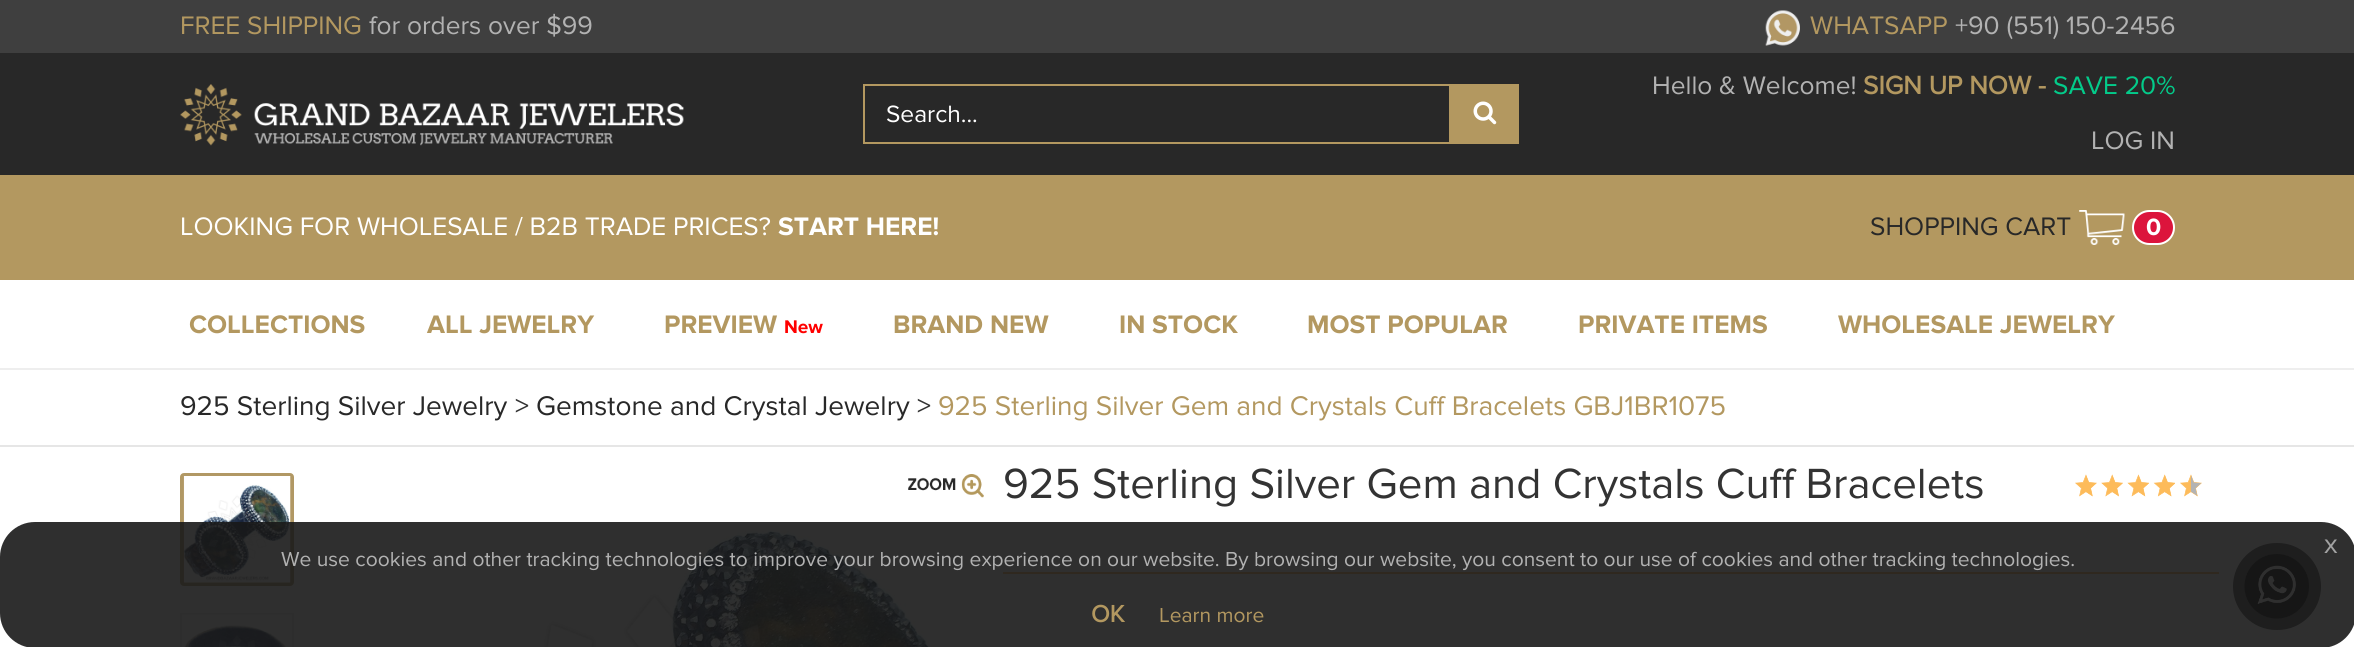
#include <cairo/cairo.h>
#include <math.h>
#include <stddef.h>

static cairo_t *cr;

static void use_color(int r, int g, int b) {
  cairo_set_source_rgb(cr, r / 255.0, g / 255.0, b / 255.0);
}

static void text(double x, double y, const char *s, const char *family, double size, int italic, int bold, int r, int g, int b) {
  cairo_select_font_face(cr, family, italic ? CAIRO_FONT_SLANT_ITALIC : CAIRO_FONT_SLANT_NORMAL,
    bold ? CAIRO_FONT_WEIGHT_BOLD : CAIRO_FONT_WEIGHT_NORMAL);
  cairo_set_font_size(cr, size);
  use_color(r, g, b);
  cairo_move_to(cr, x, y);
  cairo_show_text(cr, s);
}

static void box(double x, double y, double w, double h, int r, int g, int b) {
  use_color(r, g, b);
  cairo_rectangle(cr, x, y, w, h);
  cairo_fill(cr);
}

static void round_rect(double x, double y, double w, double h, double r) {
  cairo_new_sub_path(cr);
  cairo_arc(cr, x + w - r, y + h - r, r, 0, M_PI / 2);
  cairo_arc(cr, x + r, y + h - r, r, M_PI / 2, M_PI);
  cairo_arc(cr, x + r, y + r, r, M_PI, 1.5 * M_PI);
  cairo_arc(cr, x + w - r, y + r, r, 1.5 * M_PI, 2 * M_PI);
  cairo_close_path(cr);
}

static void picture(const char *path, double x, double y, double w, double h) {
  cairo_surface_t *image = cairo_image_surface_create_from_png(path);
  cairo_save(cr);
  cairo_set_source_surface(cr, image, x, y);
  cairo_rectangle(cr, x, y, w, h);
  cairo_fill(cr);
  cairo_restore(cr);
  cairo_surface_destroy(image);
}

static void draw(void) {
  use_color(255, 255, 255);
  cairo_paint(cr);
  box(0, 0, 2354, 53, 63, 63, 63);
  picture("img_01.png", 1765, 10, 35, 36);
  box(0, 53, 2354, 122, 40, 40, 40);
  picture("img_02.png", 180, 84, 504, 62);
  cairo_rectangle(cr, 864, 85, 586, 58);
  use_color(179, 152, 96);
  cairo_stroke(cr);
  box(1451, 84, 68, 60, 179, 152, 96);
  picture("img_03.png", 1473, 101, 24, 24);
  box(0, 175, 2354, 105, 179, 152, 96);
  picture("img_04.png", 2079, 210, 46, 35);
  use_color(220, 20, 60);
  round_rect(2133, 211, 41, 33, 16.5);
  cairo_fill_preserve(cr);
  use_color(255, 255, 255);
  cairo_stroke(cr);
  box(0, 368, 2354, 2, 238, 238, 238);
  box(0, 445, 2354, 2, 230, 230, 230);
  round_rect(182, 475, 110, 109, 2);
  use_color(177, 152, 100);
  cairo_set_line_width(cr, 4);
  cairo_stroke(cr);
  picture("img_05.png", 183, 476, 108, 107);
  cairo_rectangle(cr, 181, 614, 112, 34);
  use_color(230, 230, 230);
  cairo_set_line_width(cr, 2);
  cairo_stroke(cr);
  picture("img_06.png", 182, 614, 111, 33);
  picture("img_07.png", 908, 474, 76, 24);
  picture("img_08.png", 543, 526, 392, 121);
  picture("img_09.png", 2075, 474, 22, 23);
  picture("img_10.png", 2101, 474, 22, 23);
  picture("img_11.png", 2127, 474, 22, 23);
  picture("img_12.png", 2153, 474, 22, 23);
  picture("img_13.png", 2180, 474, 22, 23);
  box(1003, 572, 1216, 2, 255, 186, 90);
  use_color(77, 77, 77);
  round_rect(2233, 543, 88, 87, 43.5);
  cairo_fill(cr);
  picture("img_14.png", 2244, 554, 65, 65);
  cairo_set_source_rgba(cr, 0.098, 0.098, 0.098, 0.9);
  round_rect(0, 522, 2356, 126, 35);
  cairo_fill(cr);
  text(180, 34, "FREE SHIPPING", "Proxima Nova", 26.25, 0, 0, 179, 152, 96);
  text(369, 34, "for orders over $99", "Proxima Nova", 26.25, 0, 0, 178, 178, 178);
  text(1810, 34, "WHATSAPP", "Proxima Nova", 26.25, 0, 0, 179, 152, 96);
  text(1955, 34, "+90 (551) 150-2456", "Proxima Nova", 26.25, 0, 0, 178, 178, 178);
  text(886, 122, "Search...", "Proxima Nova", 24.5, 0, 0, 255, 255, 255);
  text(1652, 94, "Hello & Welcome!", "Proxima Nova", 26.25, 0, 0, 178, 178, 178);
  text(1863, 94, "SIGN UP NOW -", "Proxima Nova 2", 26.25, 0, 1, 179, 152, 96);
  text(2053, 94, "SAVE 20%", "Proxima Nova", 26.25, 0, 0, 3, 203, 138);
  text(2091, 149, "LOG IN", "Proxima Nova", 26.25, 0, 0, 178, 178, 178);
  text(180, 235, "LOOKING FOR WHOLESALE / B2B TRADE PRICES?", "Proxima Nova", 26.25, 0, 0, 255, 255, 255);
  text(778, 235, "START HERE!", "Proxima Nova", 26.25, 0, 1, 255, 255, 255);
  text(1870, 235, "SHOPPING CART", "Proxima Nova", 26.25, 0, 0, 40, 40, 40);
  text(2146, 235, "0", "Proxima Nova", 24.5, 0, 1, 255, 255, 255);
  text(189, 333, "COLLECTIONS", "Proxima Nova", 26.25, 0, 1, 179, 152, 96);
  text(427, 333, "ALL JEWELRY", "Proxima Nova", 26.25, 0, 1, 179, 152, 96);
  text(664, 333, "PREVIEW", "Proxima Nova", 26.25, 0, 1, 179, 152, 96);
  text(784, 333, "New", "Proxima Nova", 19, 0, 1, 255, 0, 0);
  text(893, 333, "BRAND NEW", "Proxima Nova", 26.25, 0, 1, 179, 152, 96);
  text(1119, 333, "IN STOCK", "Proxima Nova", 26.25, 0, 1, 179, 152, 96);
  text(1307, 333, "MOST POPULAR", "Proxima Nova", 26.25, 0, 1, 179, 152, 96);
  text(1578, 333, "PRIVATE ITEMS", "Proxima Nova", 26.25, 0, 1, 179, 152, 96);
  text(1838, 333, "WHOLESALE JEWELRY", "Proxima Nova", 26.25, 0, 1, 179, 152, 96);
  text(180, 415, "925 Sterling Silver Jewelry", "Proxima Nova", 28, 0, 0, 40, 40, 40);
  text(515, 415, ">", "Proxima Nova", 28, 0, 0, 51, 51, 51);
  text(536, 415, "Gemstone and Crystal Jewelry", "Proxima Nova", 28, 0, 0, 40, 40, 40);
  text(917, 415, ">", "Proxima Nova", 28, 0, 0, 51, 51, 51);
  text(938, 415, "925 Sterling Silver Gem and Crystals Cuff Bracelets GBJ1BR1075", "Proxima Nova", 28, 0, 0, 179, 152, 96);
  text(1003, 498, "925 Sterling Silver Gem and Crystals Cuff Bracelets", "Proxima Nova", 43.75, 0, 0, 51, 51, 51);
  text(2324, 553, "x", "Proxima Nova", 28, 0, 0, 162, 162, 162);
  text(281, 566, "We use cookies and other tracking technologies to improve your browsing experience on our website. By browsing our website, you consent to our use of cookies and other tracking technologies.", "Proxima Nova", 21, 0, 0, 178, 178, 178);
  text(1091, 622, "OK", "Proxima Nova 2", 24.5, 0, 1, 179, 152, 96);
  text(1159, 622, "Learn more", "Proxima Nova", 21, 0, 0, 179, 152, 96);
}

int main(void) {
  cairo_surface_t *surface = cairo_image_surface_create(CAIRO_FORMAT_RGB24, 2354, 647);
  cr = cairo_create(surface);
  cairo_font_options_t *options = cairo_font_options_create();
  cairo_font_options_set_hint_metrics(options, CAIRO_HINT_METRICS_OFF);
  cairo_font_options_set_hint_style(options, CAIRO_HINT_STYLE_NONE);
  cairo_set_font_options(cr, options);
  cairo_set_miter_limit(cr, 4);
  draw();
  cairo_surface_write_to_png(surface, "out.png");
  cairo_font_options_destroy(options);
  cairo_destroy(cr);
  cairo_surface_destroy(surface);
  return 0;
}
